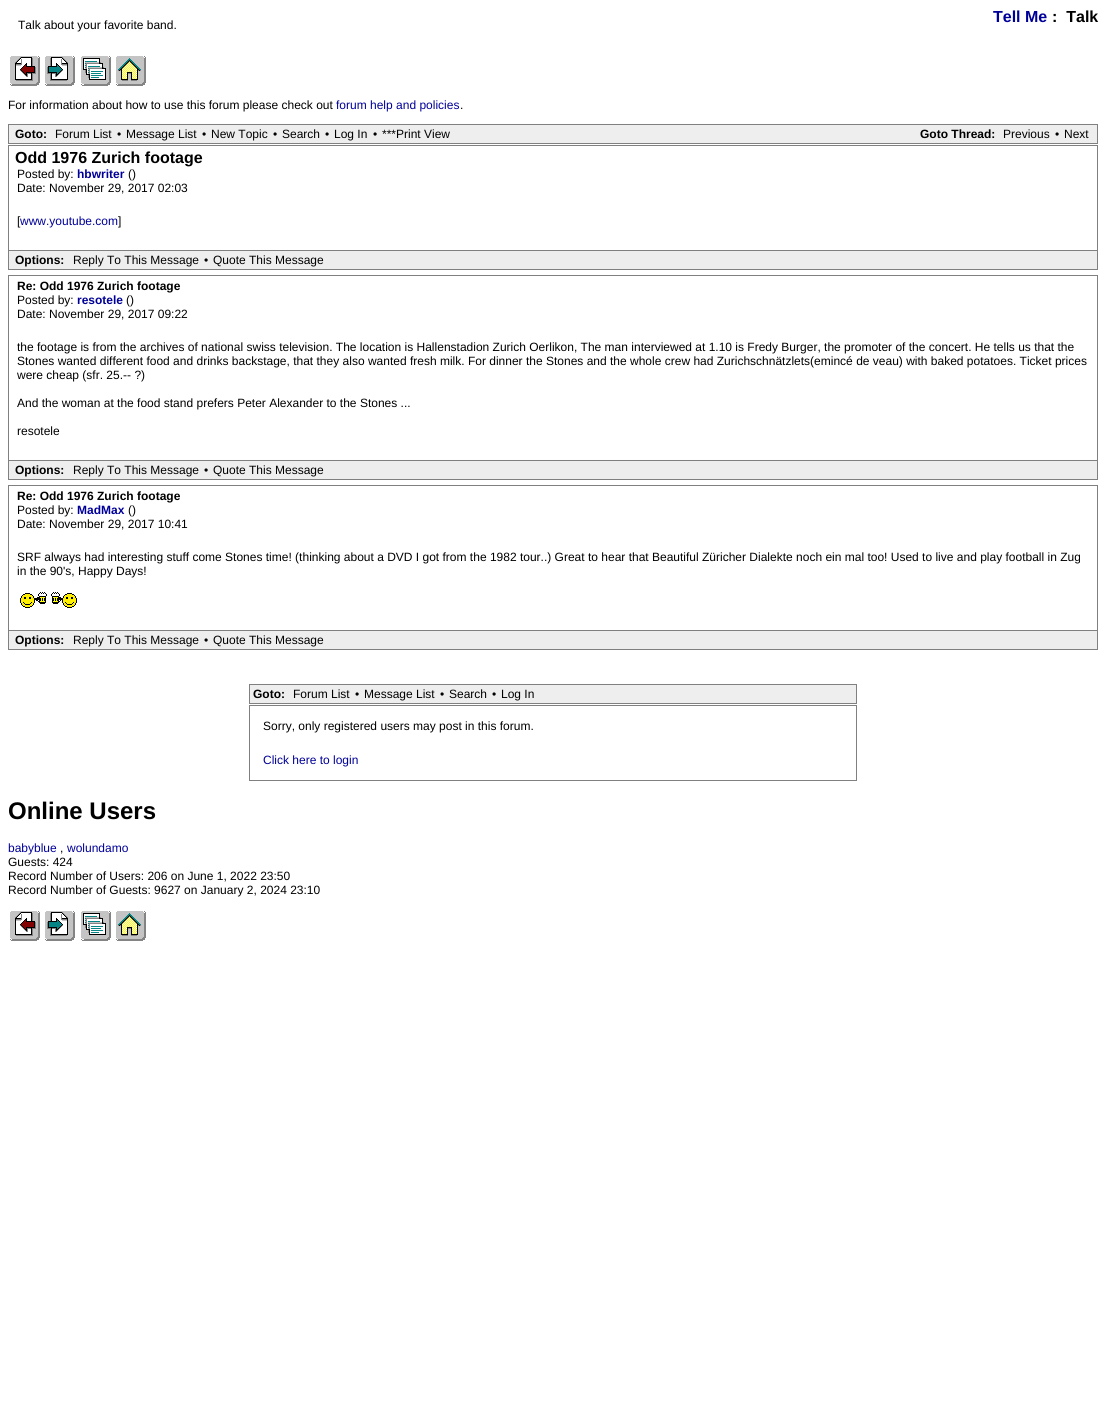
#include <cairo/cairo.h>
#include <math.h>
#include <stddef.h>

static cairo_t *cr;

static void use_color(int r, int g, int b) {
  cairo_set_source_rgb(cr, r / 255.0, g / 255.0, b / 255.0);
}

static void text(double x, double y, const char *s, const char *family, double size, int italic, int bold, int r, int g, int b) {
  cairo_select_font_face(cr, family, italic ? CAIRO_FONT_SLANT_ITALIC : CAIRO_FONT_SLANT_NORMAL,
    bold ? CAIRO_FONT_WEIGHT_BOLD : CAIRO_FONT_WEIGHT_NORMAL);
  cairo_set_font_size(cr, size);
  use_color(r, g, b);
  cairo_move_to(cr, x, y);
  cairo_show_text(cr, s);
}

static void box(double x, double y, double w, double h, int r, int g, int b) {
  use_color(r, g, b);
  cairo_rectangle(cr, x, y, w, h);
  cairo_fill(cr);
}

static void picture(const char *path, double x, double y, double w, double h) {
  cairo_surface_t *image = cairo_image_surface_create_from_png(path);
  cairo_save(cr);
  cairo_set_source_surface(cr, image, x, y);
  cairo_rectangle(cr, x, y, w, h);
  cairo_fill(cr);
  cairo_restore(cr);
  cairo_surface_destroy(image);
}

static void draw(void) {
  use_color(255, 255, 255);
  cairo_paint(cr);
  picture("img_01.png", 10, 56, 30, 30);
  picture("img_02.png", 45, 56, 30, 30);
  picture("img_03.png", 81, 56, 30, 30);
  picture("img_04.png", 116, 56, 30, 30);
  use_color(238, 238, 238);
  cairo_rectangle(cr, 8.5, 124.5, 1089, 19);
  cairo_fill_preserve(cr);
  use_color(128, 128, 128);
  cairo_set_line_width(cr, 1);
  cairo_stroke(cr);
  cairo_rectangle(cr, 8.5, 145.5, 1089, 105);
  cairo_stroke(cr);
  box(9, 251, 1088, 18, 238, 238, 238);
  box(1097, 251, 1, 19, 128, 128, 128);
  box(8, 269, 1090, 1, 128, 128, 128);
  box(8, 251, 1, 19, 128, 128, 128);
  cairo_rectangle(cr, 8.5, 275.5, 1089, 185);
  cairo_stroke(cr);
  box(9, 461, 1088, 18, 238, 238, 238);
  box(1097, 461, 1, 19, 128, 128, 128);
  box(8, 479, 1090, 1, 128, 128, 128);
  box(8, 461, 1, 19, 128, 128, 128);
  cairo_rectangle(cr, 8.5, 485.5, 1089, 145);
  cairo_stroke(cr);
  picture("img_05.png", 20, 592, 57, 16);
  box(9, 631, 1088, 18, 238, 238, 238);
  box(1097, 631, 1, 19, 128, 128, 128);
  box(8, 649, 1090, 1, 128, 128, 128);
  box(8, 631, 1, 19, 128, 128, 128);
  use_color(238, 238, 238);
  cairo_rectangle(cr, 249.5, 684.5, 607, 19);
  cairo_fill_preserve(cr);
  use_color(128, 128, 128);
  cairo_stroke(cr);
  cairo_rectangle(cr, 249.5, 705.5, 607, 75);
  cairo_stroke(cr);
  picture("img_01.png", 10, 911, 30, 30);
  picture("img_02.png", 45, 911, 30, 30);
  picture("img_03.png", 81, 911, 30, 30);
  picture("img_04.png", 116, 911, 30, 30);
  text(993, 22, "Tell Me", "Liberation Sans", 16, 0, 1, 0, 0, 153);
  text(1052, 22, ":  Talk", "Liberation Sans", 16, 0, 1, 0, 0, 0);
  text(18, 29, "Talk about your favorite band.", "Liberation Sans", 12, 0, 0, 0, 0, 0);
  text(8, 109, "For information about how to use this forum please check out", "Liberation Sans", 12, 0, 0, 0, 0, 0);
  text(336, 109, "forum help and policies", "Liberation Sans", 12, 0, 0, 0, 0, 153);
  text(460, 109, ".", "Liberation Sans", 12, 0, 0, 0, 0, 0);
  text(15, 138, "Goto:", "Liberation Sans", 12, 0, 1, 0, 0, 0);
  text(55, 138, "Forum List", "Liberation Sans", 12, 0, 0, 0, 0, 0);
  text(117, 138, "•", "Liberation Sans", 12, 0, 0, 0, 0, 0);
  text(126, 138, "Message List", "Liberation Sans", 12, 0, 0, 0, 0, 0);
  text(202, 138, "•", "Liberation Sans", 12, 0, 0, 0, 0, 0);
  text(211, 138, "New Topic", "Liberation Sans", 12, 0, 0, 0, 0, 0);
  text(273, 138, "•", "Liberation Sans", 12, 0, 0, 0, 0, 0);
  text(282, 138, "Search", "Liberation Sans", 12, 0, 0, 0, 0, 0);
  text(325, 138, "•", "Liberation Sans", 12, 0, 0, 0, 0, 0);
  text(334, 138, "Log In", "Liberation Sans", 12, 0, 0, 0, 0, 0);
  text(373, 138, "•", "Liberation Sans", 12, 0, 0, 0, 0, 0);
  text(382, 138, "***Print View", "Liberation Sans", 12, 0, 0, 0, 0, 0);
  text(920, 138, "Goto Thread:", "Liberation Sans", 12, 0, 1, 0, 0, 0);
  text(1003, 138, "Previous", "Liberation Sans", 12, 0, 0, 0, 0, 0);
  text(1055, 138, "•", "Liberation Sans", 12, 0, 0, 0, 0, 0);
  text(1064, 138, "Next", "Liberation Sans", 12, 0, 0, 0, 0, 0);
  text(15, 163, "Odd 1976 Zurich footage", "Liberation Sans", 16, 0, 1, 0, 0, 0);
  text(17, 178, "Posted by:", "Liberation Sans", 12, 0, 0, 0, 0, 0);
  text(77, 178, "hbwriter", "Liberation Sans", 12, 0, 1, 0, 0, 153);
  text(128, 178, "()", "Liberation Sans", 12, 0, 0, 0, 0, 0);
  text(17, 192, "Date: November 29, 2017 02:03", "Liberation Sans", 12, 0, 0, 0, 0, 0);
  text(17, 225, "[", "Liberation Sans", 12, 0, 0, 0, 0, 0);
  text(20, 225, "www.youtube.com", "Liberation Sans", 12, 0, 0, 0, 0, 153);
  text(118, 225, "]", "Liberation Sans", 12, 0, 0, 0, 0, 0);
  text(15, 264, "Options:", "Liberation Sans", 12, 0, 1, 0, 0, 0);
  text(73, 264, "Reply To This Message", "Liberation Sans", 12, 0, 0, 0, 0, 0);
  text(204, 264, "•", "Liberation Sans", 12, 0, 0, 0, 0, 0);
  text(213, 264, "Quote This Message", "Liberation Sans", 12, 0, 0, 0, 0, 0);
  text(17, 290, "Re: Odd 1976 Zurich footage", "Liberation Sans", 12, 0, 1, 0, 0, 0);
  text(17, 304, "Posted by:", "Liberation Sans", 12, 0, 0, 0, 0, 0);
  text(77, 304, "resotele", "Liberation Sans", 12, 0, 1, 0, 0, 153);
  text(126, 304, "()", "Liberation Sans", 12, 0, 0, 0, 0, 0);
  text(17, 318, "Date: November 29, 2017 09:22", "Liberation Sans", 12, 0, 0, 0, 0, 0);
  text(17, 351, "the footage is from the archives of national swiss television. The location is Hallenstadion Zurich Oerlikon, The man interviewed at 1.10 is Fredy Burger, the promoter of the concert. He tells us that the", "Liberation Sans", 12, 0, 0, 0, 0, 0);
  text(17, 365, "Stones wanted different food and drinks backstage, that they also wanted fresh milk. For dinner the Stones and the whole crew had Zurichschnätzlets(emincé de veau) with baked potatoes. Ticket prices", "Liberation Sans", 12, 0, 0, 0, 0, 0);
  text(17, 379, "were cheap (sfr. 25.-- ?)", "Liberation Sans", 12, 0, 0, 0, 0, 0);
  text(17, 407, "And the woman at the food stand prefers Peter Alexander to the Stones ...", "Liberation Sans", 12, 0, 0, 0, 0, 0);
  text(17, 435, "resotele", "Liberation Sans", 12, 0, 0, 0, 0, 0);
  text(15, 474, "Options:", "Liberation Sans", 12, 0, 1, 0, 0, 0);
  text(73, 474, "Reply To This Message", "Liberation Sans", 12, 0, 0, 0, 0, 0);
  text(204, 474, "•", "Liberation Sans", 12, 0, 0, 0, 0, 0);
  text(213, 474, "Quote This Message", "Liberation Sans", 12, 0, 0, 0, 0, 0);
  text(17, 500, "Re: Odd 1976 Zurich footage", "Liberation Sans", 12, 0, 1, 0, 0, 0);
  text(17, 514, "Posted by:", "Liberation Sans", 12, 0, 0, 0, 0, 0);
  text(77, 514, "MadMax", "Liberation Sans", 12, 0, 1, 0, 0, 153);
  text(128, 514, "()", "Liberation Sans", 12, 0, 0, 0, 0, 0);
  text(17, 528, "Date: November 29, 2017 10:41", "Liberation Sans", 12, 0, 0, 0, 0, 0);
  text(17, 561, "SRF always had interesting stuff come Stones time! (thinking about a DVD I got from the 1982 tour..) Great to hear that Beautiful Züricher Dialekte noch ein mal too! Used to live and play football in Zug", "Liberation Sans", 12, 0, 0, 0, 0, 0);
  text(17, 575, "in the 90's, Happy Days!", "Liberation Sans", 12, 0, 0, 0, 0, 0);
  text(15, 644, "Options:", "Liberation Sans", 12, 0, 1, 0, 0, 0);
  text(73, 644, "Reply To This Message", "Liberation Sans", 12, 0, 0, 0, 0, 0);
  text(204, 644, "•", "Liberation Sans", 12, 0, 0, 0, 0, 0);
  text(213, 644, "Quote This Message", "Liberation Sans", 12, 0, 0, 0, 0, 0);
  text(253, 698, "Goto:", "Liberation Sans", 12, 0, 1, 0, 0, 0);
  text(293, 698, "Forum List", "Liberation Sans", 12, 0, 0, 0, 0, 0);
  text(355, 698, "•", "Liberation Sans", 12, 0, 0, 0, 0, 0);
  text(364, 698, "Message List", "Liberation Sans", 12, 0, 0, 0, 0, 0);
  text(440, 698, "•", "Liberation Sans", 12, 0, 0, 0, 0, 0);
  text(449, 698, "Search", "Liberation Sans", 12, 0, 0, 0, 0, 0);
  text(492, 698, "•", "Liberation Sans", 12, 0, 0, 0, 0, 0);
  text(501, 698, "Log In", "Liberation Sans", 12, 0, 0, 0, 0, 0);
  text(263, 730, "Sorry, only registered users may post in this forum.", "Liberation Sans", 12, 0, 0, 0, 0, 0);
  text(263, 764, "Click here to login", "Liberation Sans", 12, 0, 0, 0, 0, 153);
  text(8, 819, "Online Users", "Liberation Sans", 24, 0, 1, 0, 0, 0);
  text(8, 852, "babyblue", "Liberation Sans", 12, 0, 0, 0, 0, 153);
  text(60, 852, ",", "Liberation Sans", 12, 0, 0, 0, 0, 0);
  text(67, 852, "wolundamo", "Liberation Sans", 12, 0, 0, 0, 0, 153);
  text(8, 866, "Guests: 424", "Liberation Sans", 12, 0, 0, 0, 0, 0);
  text(8, 880, "Record Number of Users: 206 on June 1, 2022 23:50", "Liberation Sans", 12, 0, 0, 0, 0, 0);
  text(8, 894, "Record Number of Guests: 9627 on January 2, 2024 23:10", "Liberation Sans", 12, 0, 0, 0, 0, 0);
}

int main(void) {
  cairo_surface_t *surface = cairo_image_surface_create(CAIRO_FORMAT_RGB24, 1106, 1411);
  cr = cairo_create(surface);
  cairo_font_options_t *options = cairo_font_options_create();
  cairo_font_options_set_hint_metrics(options, CAIRO_HINT_METRICS_OFF);
  cairo_font_options_set_hint_style(options, CAIRO_HINT_STYLE_NONE);
  cairo_set_font_options(cr, options);
  cairo_set_miter_limit(cr, 4);
  draw();
  cairo_surface_write_to_png(surface, "out.png");
  cairo_font_options_destroy(options);
  cairo_destroy(cr);
  cairo_surface_destroy(surface);
  return 0;
}
